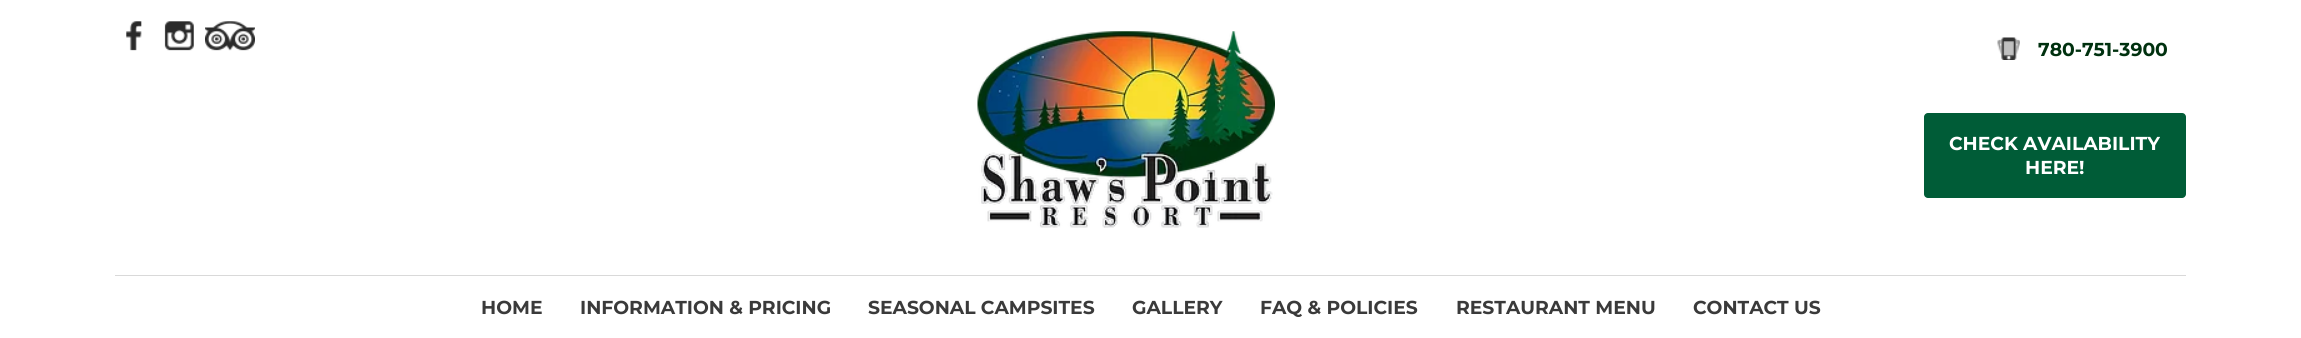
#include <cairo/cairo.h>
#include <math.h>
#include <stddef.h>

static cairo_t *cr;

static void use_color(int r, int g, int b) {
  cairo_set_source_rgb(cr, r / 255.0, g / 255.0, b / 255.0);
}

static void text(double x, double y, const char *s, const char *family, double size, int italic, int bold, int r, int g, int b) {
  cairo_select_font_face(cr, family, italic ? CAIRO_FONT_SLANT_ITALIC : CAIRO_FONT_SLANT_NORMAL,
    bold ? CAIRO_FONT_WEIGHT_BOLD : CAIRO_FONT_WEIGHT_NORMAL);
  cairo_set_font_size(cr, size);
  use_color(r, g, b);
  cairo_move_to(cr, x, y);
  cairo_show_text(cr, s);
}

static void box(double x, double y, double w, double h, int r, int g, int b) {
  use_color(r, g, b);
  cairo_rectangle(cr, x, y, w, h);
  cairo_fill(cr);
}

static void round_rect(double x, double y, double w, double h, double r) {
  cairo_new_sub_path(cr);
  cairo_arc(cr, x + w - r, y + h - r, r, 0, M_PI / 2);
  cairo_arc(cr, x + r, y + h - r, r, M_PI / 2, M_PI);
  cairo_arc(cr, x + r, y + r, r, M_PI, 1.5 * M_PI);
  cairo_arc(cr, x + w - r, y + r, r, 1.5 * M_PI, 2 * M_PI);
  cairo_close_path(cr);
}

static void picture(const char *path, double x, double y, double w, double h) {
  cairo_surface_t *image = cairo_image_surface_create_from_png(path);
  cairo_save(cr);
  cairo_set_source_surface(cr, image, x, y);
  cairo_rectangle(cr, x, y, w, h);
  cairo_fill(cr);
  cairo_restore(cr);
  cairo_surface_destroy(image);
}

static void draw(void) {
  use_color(255, 255, 255);
  cairo_paint(cr);
  picture("img_01.png", 126, 21, 16, 30);
  picture("img_02.png", 164, 21, 30, 30);
  picture("img_03.png", 205, 21, 50, 30);
  picture("img_04.png", 977, 31, 298, 197);
  picture("img_05.png", 1997, 37, 23, 23);
  use_color(0, 92, 55);
  round_rect(1924, 113, 262, 85, 4);
  cairo_fill(cr);
  box(115, 275, 2071, 1, 217, 217, 217);
  text(2038, 56, "780-751-3900", "Montserrat", 18.75, 0, 1, 0, 49, 15);
  text(1949, 150, "CHECK AVAILABILITY", "Montserrat", 18.75, 0, 1, 255, 255, 255);
  text(2025, 174, "HERE!", "Montserrat", 18.75, 0, 1, 255, 255, 255);
  text(481, 314, "HOME", "Montserrat", 18.75, 0, 1, 58, 58, 58);
  text(580, 314, "INFORMATION & PRICING", "Montserrat", 18.75, 0, 1, 58, 58, 58);
  text(868, 314, "SEASONAL CAMPSITES", "Montserrat", 18.75, 0, 1, 58, 58, 58);
  text(1132, 314, "GALLERY", "Montserrat", 18.75, 0, 1, 58, 58, 58);
  text(1260, 314, "FAQ & POLICIES", "Montserrat", 18.75, 0, 1, 58, 58, 58);
  text(1456, 314, "RESTAURANT MENU", "Montserrat", 18.75, 0, 1, 58, 58, 58);
  text(1693, 314, "CONTACT US", "Montserrat", 18.75, 0, 1, 58, 58, 58);
}

int main(void) {
  cairo_surface_t *surface = cairo_image_surface_create(CAIRO_FORMAT_RGB24, 2301, 338);
  cr = cairo_create(surface);
  cairo_font_options_t *options = cairo_font_options_create();
  cairo_font_options_set_hint_metrics(options, CAIRO_HINT_METRICS_OFF);
  cairo_font_options_set_hint_style(options, CAIRO_HINT_STYLE_NONE);
  cairo_set_font_options(cr, options);
  cairo_set_miter_limit(cr, 4);
  draw();
  cairo_surface_write_to_png(surface, "out.png");
  cairo_font_options_destroy(options);
  cairo_destroy(cr);
  cairo_surface_destroy(surface);
  return 0;
}
